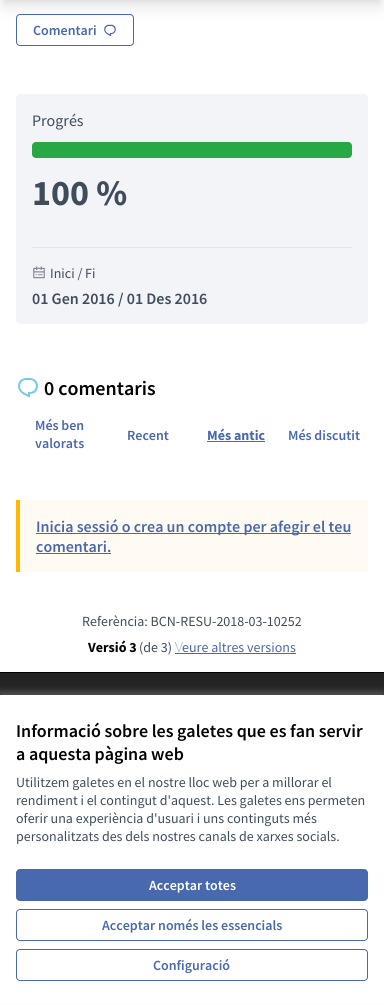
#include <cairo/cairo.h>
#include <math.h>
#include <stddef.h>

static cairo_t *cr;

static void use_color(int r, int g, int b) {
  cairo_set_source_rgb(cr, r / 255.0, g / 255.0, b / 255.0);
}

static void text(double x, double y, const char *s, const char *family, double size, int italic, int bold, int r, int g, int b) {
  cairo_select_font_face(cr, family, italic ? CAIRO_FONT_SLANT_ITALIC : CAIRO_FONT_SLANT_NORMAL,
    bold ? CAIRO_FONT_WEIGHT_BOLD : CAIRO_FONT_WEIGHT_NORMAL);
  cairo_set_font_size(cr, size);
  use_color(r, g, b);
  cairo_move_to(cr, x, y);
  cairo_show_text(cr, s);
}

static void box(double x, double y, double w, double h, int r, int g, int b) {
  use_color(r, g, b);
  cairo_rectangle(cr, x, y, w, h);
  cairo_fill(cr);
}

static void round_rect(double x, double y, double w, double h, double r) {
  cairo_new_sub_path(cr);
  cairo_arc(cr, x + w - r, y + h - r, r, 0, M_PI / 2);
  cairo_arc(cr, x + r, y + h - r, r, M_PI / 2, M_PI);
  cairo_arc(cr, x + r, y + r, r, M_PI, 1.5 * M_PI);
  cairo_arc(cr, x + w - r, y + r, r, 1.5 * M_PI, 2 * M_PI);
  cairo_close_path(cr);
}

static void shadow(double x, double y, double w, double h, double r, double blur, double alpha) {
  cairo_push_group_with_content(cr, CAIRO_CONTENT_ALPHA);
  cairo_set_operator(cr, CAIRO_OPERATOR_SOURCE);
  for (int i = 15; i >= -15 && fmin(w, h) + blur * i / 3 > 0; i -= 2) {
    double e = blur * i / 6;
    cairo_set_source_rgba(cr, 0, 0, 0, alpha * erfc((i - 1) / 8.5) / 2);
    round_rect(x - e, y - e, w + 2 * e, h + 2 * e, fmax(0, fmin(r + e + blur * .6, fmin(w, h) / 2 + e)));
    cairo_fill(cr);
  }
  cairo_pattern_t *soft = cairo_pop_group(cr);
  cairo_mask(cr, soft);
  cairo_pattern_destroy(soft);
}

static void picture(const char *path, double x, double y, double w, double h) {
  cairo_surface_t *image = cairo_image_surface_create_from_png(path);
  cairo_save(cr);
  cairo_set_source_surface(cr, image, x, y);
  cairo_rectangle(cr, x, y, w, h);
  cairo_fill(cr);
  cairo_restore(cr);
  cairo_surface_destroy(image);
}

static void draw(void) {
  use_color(255, 255, 255);
  cairo_paint(cr);
  use_color(0, 0, 0);
  shadow(4, -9, 376, 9, 0, 3, 0.1);
  round_rect(16.5, 14.5, 117, 31, 3.5);
  use_color(72, 105, 173);
  cairo_set_line_width(cr, 1);
  cairo_stroke(cr);
  picture("img_01.png", 104, 24, 12, 13);
  use_color(0, 0, 0);
  shadow(3, -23, 378, 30, 0, 7.5, 0.1);
  use_color(243, 244, 247);
  round_rect(16, 94, 352, 230, 4);
  cairo_fill(cr);
  use_color(40, 167, 69);
  round_rect(32, 142, 320, 16, 4);
  cairo_fill(cr);
  box(32, 247, 320, 1, 225, 229, 239);
  picture("img_02.png", 33, 266, 12, 13);
  picture("img_03.png", 18, 378, 20, 20);
  box(207, 441, 58, 1, 72, 105, 173);
  box(20, 500, 348, 72, 255, 251, 242);
  box(16, 500, 4, 72, 255, 183, 3);
  box(36, 533, 315, 1, 72, 105, 173);
  box(36, 553, 75, 1, 72, 105, 173);
  box(175, 653, 121, 1, 72, 105, 173);
  box(0, 673, 384, 22, 36, 36, 36);
  box(0, 672, 384, 1, 2, 2, 3);
  use_color(211, 211, 211);
  shadow(0, 691, 384, 310, 0, 3, 0.25);
  box(0, 695, 384, 308, 255, 255, 255);
  use_color(72, 105, 173);
  round_rect(16, 869, 352, 32, 4);
  cairo_fill(cr);
  round_rect(16.5, 909.5, 351, 31, 3.5);
  cairo_stroke(cr);
  round_rect(16.5, 949.5, 351, 31, 3.5);
  cairo_stroke(cr);
  text(33, 35, "Comentari", "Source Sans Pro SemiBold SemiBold", 14, 0, 0, 72, 105, 173);
  text(32, 126, "Progrés", "Source Sans Pro", 16, 0, 0, 62, 76, 92);
  text(32, 205, "100 %", "Source Sans Pro", 36, 0, 1, 62, 76, 92);
  text(50, 278, "Inici / Fi", "Source Sans Pro", 14, 0, 0, 62, 76, 92);
  text(32, 304, "01 Gen 2016 / 01 Des 2016", "Source Sans Pro SemiBold SemiBold", 16, 0, 0, 62, 76, 92);
  text(44, 395, "0 comentaris", "Source Sans Pro SemiBold SemiBold", 20, 0, 0, 2, 2, 3);
  text(35, 430, "Més ben", "Source Sans Pro SemiBold SemiBold", 14, 0, 0, 72, 105, 173);
  text(35, 448, "valorats", "Source Sans Pro SemiBold SemiBold", 14, 0, 0, 72, 105, 173);
  text(127, 440, "Recent", "Source Sans Pro SemiBold SemiBold", 14, 0, 0, 72, 105, 173);
  text(207, 440, "Més antic", "Source Sans Pro", 14, 0, 1, 72, 105, 173);
  text(288, 440, "Més discutit", "Source Sans Pro SemiBold SemiBold", 14, 0, 0, 72, 105, 173);
  text(36, 532, "Inicia sessió o crea un compte per afegir el teu", "Source Sans Pro SemiBold SemiBold", 16, 0, 0, 72, 105, 173);
  text(36, 552, "comentari.", "Source Sans Pro SemiBold SemiBold", 16, 0, 0, 72, 105, 173);
  text(82, 626, "Referència: BCN-RESU-2018-03-10252", "Source Sans Pro", 14, 0, 0, 62, 76, 92);
  text(88, 652, "Versió 3", "Source Sans Pro", 14, 0, 1, 2, 2, 3);
  text(139, 652, "(de 3)", "Source Sans Pro", 14, 0, 0, 62, 76, 92);
  text(175, 652, "V", "Noto Sans Thin", 14, 0, 0, 72, 105, 173);
  text(182, 652, "eure altres versions", "Source Sans Pro", 14, 0, 0, 72, 105, 173);
  text(16, 737, "Informació sobre les galetes que es fan servir", "Source Sans Pro SemiBold SemiBold", 18, 0, 0, 2, 2, 3);
  text(16, 760, "a aquesta pàgina web", "Source Sans Pro SemiBold SemiBold", 18, 0, 0, 2, 2, 3);
  text(16, 787, "Utilitzem galetes en el nostre lloc web per a millorar el", "Source Sans Pro", 14, 0, 0, 62, 76, 92);
  text(16, 805, "rendiment i el contingut d'aquest. Les galetes ens permeten", "Source Sans Pro", 14, 0, 0, 62, 76, 92);
  text(16, 823, "oferir una experiència d'usuari i uns continguts més", "Source Sans Pro", 14, 0, 0, 62, 76, 92);
  text(16, 841, "personalitzats des dels nostres canals de xarxes socials.", "Source Sans Pro", 14, 0, 0, 62, 76, 92);
  text(149, 890, "Acceptar totes", "Source Sans Pro SemiBold SemiBold", 14, 0, 0, 255, 255, 255);
  text(102, 930, "Acceptar només les essencials", "Source Sans Pro SemiBold SemiBold", 14, 0, 0, 72, 105, 173);
  text(153, 970, "Configuració", "Source Sans Pro SemiBold SemiBold", 14, 0, 0, 72, 105, 173);
}

int main(void) {
  cairo_surface_t *surface = cairo_image_surface_create(CAIRO_FORMAT_RGB24, 384, 1005);
  cr = cairo_create(surface);
  cairo_font_options_t *options = cairo_font_options_create();
  cairo_font_options_set_hint_metrics(options, CAIRO_HINT_METRICS_OFF);
  cairo_font_options_set_hint_style(options, CAIRO_HINT_STYLE_NONE);
  cairo_set_font_options(cr, options);
  cairo_set_miter_limit(cr, 4);
  draw();
  cairo_surface_write_to_png(surface, "out.png");
  cairo_font_options_destroy(options);
  cairo_destroy(cr);
  cairo_surface_destroy(surface);
  return 0;
}
